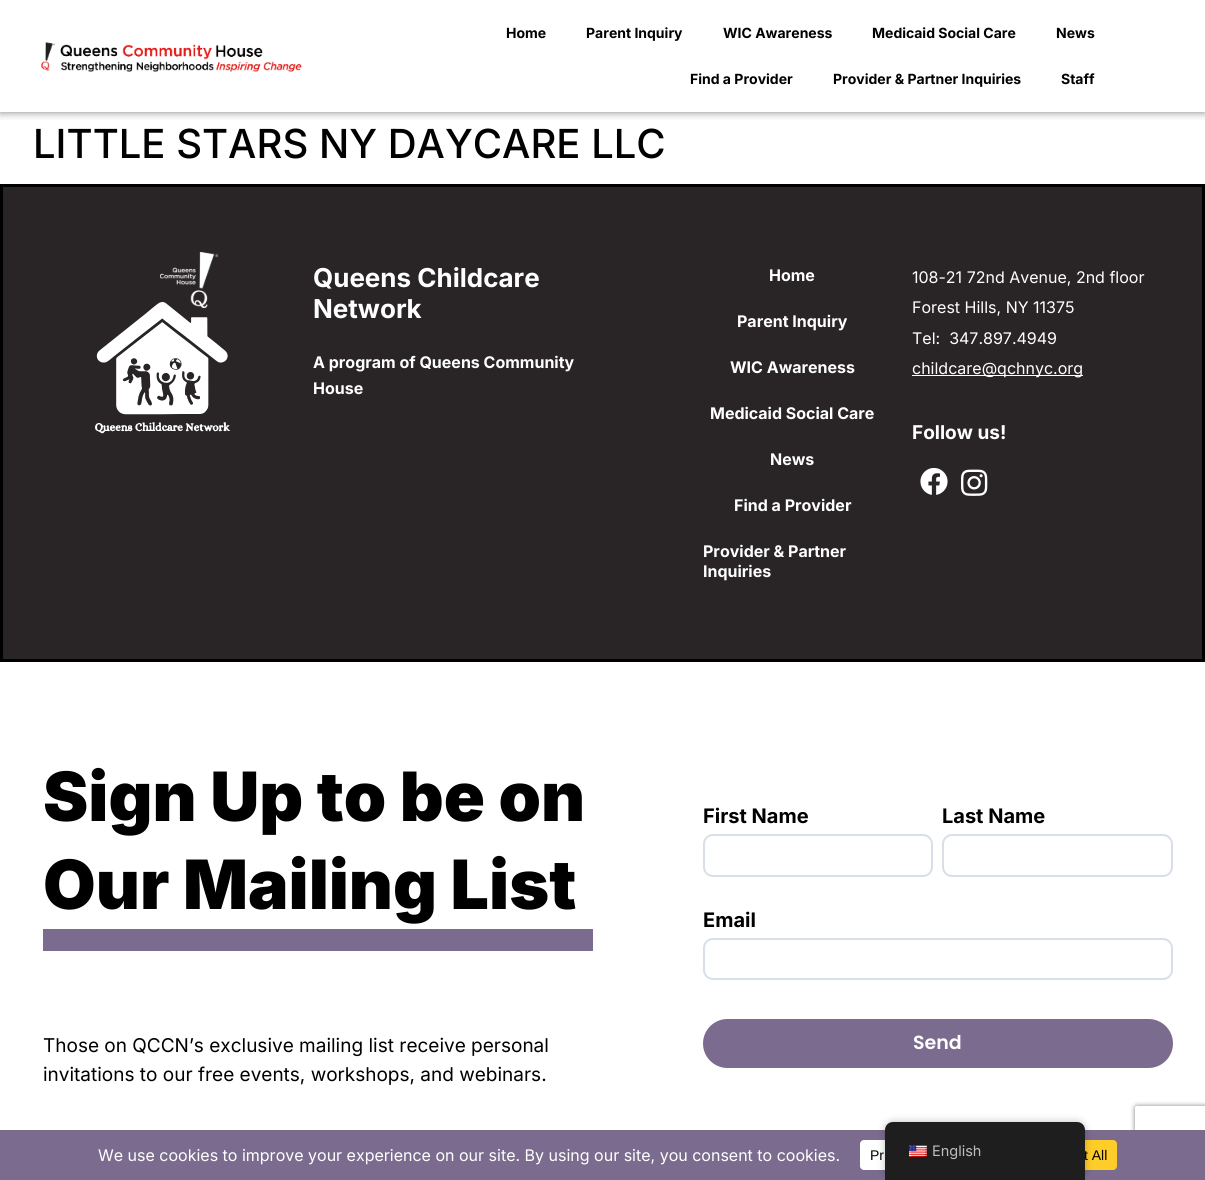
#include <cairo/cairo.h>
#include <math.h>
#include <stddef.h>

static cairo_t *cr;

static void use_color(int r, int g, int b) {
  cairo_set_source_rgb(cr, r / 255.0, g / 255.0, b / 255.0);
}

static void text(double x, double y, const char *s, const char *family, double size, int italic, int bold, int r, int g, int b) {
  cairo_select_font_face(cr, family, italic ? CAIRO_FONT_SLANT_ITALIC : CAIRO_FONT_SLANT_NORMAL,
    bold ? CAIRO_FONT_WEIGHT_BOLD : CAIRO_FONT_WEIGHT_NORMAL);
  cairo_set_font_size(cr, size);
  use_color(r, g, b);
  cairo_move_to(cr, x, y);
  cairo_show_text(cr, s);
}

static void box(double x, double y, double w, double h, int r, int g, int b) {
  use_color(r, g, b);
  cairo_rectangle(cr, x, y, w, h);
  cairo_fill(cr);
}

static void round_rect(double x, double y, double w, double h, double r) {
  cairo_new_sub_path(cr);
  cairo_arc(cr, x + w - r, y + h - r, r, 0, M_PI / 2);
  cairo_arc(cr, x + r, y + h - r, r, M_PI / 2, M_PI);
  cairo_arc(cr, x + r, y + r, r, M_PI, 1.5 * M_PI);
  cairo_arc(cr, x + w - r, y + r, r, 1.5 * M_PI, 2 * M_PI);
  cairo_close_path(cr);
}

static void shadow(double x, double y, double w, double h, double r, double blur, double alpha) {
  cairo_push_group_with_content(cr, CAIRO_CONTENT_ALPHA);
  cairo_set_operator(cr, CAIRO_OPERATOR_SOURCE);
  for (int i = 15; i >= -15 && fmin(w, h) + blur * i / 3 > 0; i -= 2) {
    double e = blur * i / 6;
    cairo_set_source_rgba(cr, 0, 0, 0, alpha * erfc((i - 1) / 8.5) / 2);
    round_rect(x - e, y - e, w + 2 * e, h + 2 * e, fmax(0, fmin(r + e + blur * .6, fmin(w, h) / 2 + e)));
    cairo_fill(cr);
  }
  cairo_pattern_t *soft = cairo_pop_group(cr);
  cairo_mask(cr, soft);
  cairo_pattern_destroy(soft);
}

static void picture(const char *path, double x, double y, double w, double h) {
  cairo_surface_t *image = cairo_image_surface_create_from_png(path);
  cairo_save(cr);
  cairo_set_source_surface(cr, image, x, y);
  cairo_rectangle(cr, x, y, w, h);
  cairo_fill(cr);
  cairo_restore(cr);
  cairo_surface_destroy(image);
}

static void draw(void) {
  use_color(255, 255, 255);
  cairo_paint(cr);
  cairo_save(cr);
  cairo_rectangle(cr, 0, 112, 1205, 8);
  cairo_clip(cr);
  use_color(0, 0, 0);
  shadow(0, 0, 1205, 112, 0, 4.5, 0.5);
  cairo_restore(cr);
  picture("img_01.png", 41, 42, 261, 30);
  use_color(41, 37, 38);
  cairo_rectangle(cr, 1.5, 185.5, 1202, 475);
  cairo_fill_preserve(cr);
  use_color(0, 0, 0);
  cairo_set_line_width(cr, 3);
  cairo_stroke(cr);
  picture("img_02.png", 95, 252, 135, 182);
  box(912, 375, 171, 1, 255, 255, 255);
  picture("img_03.png", 920, 468, 28, 27);
  picture("img_04.png", 961, 469, 27, 27);
  box(43, 929, 550, 22, 123, 108, 143);
  round_rect(704, 835, 228, 41, 9);
  use_color(216, 223, 231);
  cairo_set_line_width(cr, 2);
  cairo_stroke(cr);
  round_rect(943, 835, 229, 41, 9);
  cairo_stroke(cr);
  round_rect(704, 939, 468, 40, 9);
  cairo_stroke(cr);
  use_color(123, 108, 143);
  round_rect(703, 1019, 470, 49, 24.5);
  cairo_fill(cr);
  cairo_save(cr);
  cairo_set_fill_rule(cr, CAIRO_FILL_RULE_EVEN_ODD);
  cairo_new_path(cr);
  cairo_move_to(cr, 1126, 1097);
  cairo_line_to(cr, 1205, 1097);
  cairo_line_to(cr, 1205, 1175);
  cairo_line_to(cr, 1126, 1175);
  cairo_close_path(cr);
  cairo_move_to(cr, 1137, 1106);
  cairo_line_to(cr, 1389, 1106);
  cairo_curve_to(cr, 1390, 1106, 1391, 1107, 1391, 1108);
  cairo_line_to(cr, 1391, 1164);
  cairo_curve_to(cr, 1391, 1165, 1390, 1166, 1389, 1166);
  cairo_line_to(cr, 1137, 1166);
  cairo_curve_to(cr, 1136, 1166, 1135, 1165, 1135, 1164);
  cairo_line_to(cr, 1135, 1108);
  cairo_curve_to(cr, 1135, 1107, 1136, 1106, 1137, 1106);
  cairo_close_path(cr);
  cairo_clip(cr);
  use_color(128, 128, 128);
  shadow(1135, 1106, 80, 60, 2, 2.5, 1);
  cairo_restore(cr);
  box(0, 1130, 1205, 50, 123, 108, 143);
  use_color(255, 255, 255);
  round_rect(860, 1140, 95, 30, 4);
  cairo_fill(cr);
  use_color(255, 205, 42);
  round_rect(1035, 1140, 82, 30, 4);
  cairo_fill(cr);
  use_color(0, 0, 0);
  shadow(885, 1122, 200, 58, 8, 4, 0.25);
  text(506, 38, "Home", "Inter", 14, 0, 1, 0, 0, 0);
  text(586, 38, "Parent Inquiry", "Inter", 14, 0, 1, 0, 0, 0);
  text(723, 38, "WIC Awareness", "Inter", 14, 0, 1, 0, 0, 0);
  text(872, 38, "Medicaid Social Care", "Inter", 14, 0, 1, 0, 0, 0);
  text(1056, 38, "News", "Inter", 14, 0, 1, 0, 0, 0);
  text(690, 84, "Find a Provider", "Inter", 14, 0, 1, 0, 0, 0);
  text(833, 84, "Provider & Partner Inquiries", "Inter", 14, 0, 1, 0, 0, 0);
  text(1061, 84, "Staff", "Inter", 14, 0, 1, 0, 0, 0);
  text(33, 158, "LITTLE STARS NY DAYCARE LLC", "Inter Medium", 40, 0, 0, 0, 0, 0);
  text(313, 287, "Queens Childcare", "Inter", 26, 0, 1, 255, 255, 255);
  text(313, 318, "Network", "Inter", 26, 0, 1, 255, 255, 255);
  text(313, 368, "A program of Queens Community", "Inter", 16, 0, 1, 255, 255, 255);
  text(313, 394, "House", "Inter", 16, 0, 1, 255, 255, 255);
  text(769, 281, "Home", "Inter", 16, 0, 1, 255, 255, 255);
  text(737, 327, "Parent Inquiry", "Inter", 16, 0, 1, 255, 255, 255);
  text(730, 373, "WIC Awareness", "Inter", 16, 0, 1, 255, 255, 255);
  text(710, 419, "Medicaid Social Care", "Inter", 16, 0, 1, 255, 255, 255);
  text(770, 465, "News", "Inter", 16, 0, 1, 255, 255, 255);
  text(734, 511, "Find a Provider", "Inter", 16, 0, 1, 255, 255, 255);
  text(703, 557, "Provider & Partner", "Inter", 16, 0, 1, 255, 255, 255);
  text(703, 577, "Inquiries", "Inter", 16, 0, 1, 255, 255, 255);
  text(912, 283, "108-21 72nd Avenue, 2nd floor", "Inter", 16, 0, 0, 255, 255, 255);
  text(912, 313, "Forest Hills, NY 11375", "Inter", 16, 0, 0, 255, 255, 255);
  text(912, 344, "Tel:  347.897.4949", "Inter", 16, 0, 0, 255, 255, 255);
  text(912, 374, "childcare@qchnyc.org", "Inter", 16, 0, 0, 255, 255, 255);
  text(912, 439, "Follow us!", "Inter", 19, 0, 1, 255, 255, 255);
  text(43, 821, "Sign Up to be on", "Inter Black", 68, 0, 0, 0, 0, 0);
  text(43, 909, "Our Mailing List", "Inter Black", 68, 0, 0, 0, 0, 0);
  text(43, 1052, "Those on QCCN’s exclusive mailing list receive personal", "Inter", 19, 0, 0, 0, 0, 0);
  text(43, 1081, "invitations to our free events, workshops, and webinars.", "Inter", 19, 0, 0, 0, 0, 0);
  text(703, 823, "First Name", "Inter", 20, 0, 1, 0, 0, 0);
  text(942, 823, "Last Name", "Inter", 20, 0, 1, 0, 0, 0);
  text(703, 927, "Email", "Inter", 20, 0, 1, 0, 0, 0);
  text(913, 1049, "Send", "Poppins SemiBold", 19, 0, 0, 255, 255, 255);
  text(98, 1161, "We use cookies to improve your experience on our site. By using our site, you consent to cookies.", "Inter", 16, 0, 0, 255, 255, 255);
  text(870, 1160, "Pr", "Liberation Sans", 14, 0, 0, 0, 0, 0);
  text(1084, 1160, "t All", "Liberation Sans", 14, 0, 0, 0, 0, 0);
  use_color(30, 30, 30);
  cairo_new_path(cr);
  cairo_move_to(cr, 893, 1122);
  cairo_line_to(cr, 1077, 1122);
  cairo_curve_to(cr, 1081.5, 1122, 1085, 1125.5, 1085, 1130);
  cairo_line_to(cr, 1085, 1180);
  cairo_line_to(cr, 885, 1180);
  cairo_line_to(cr, 885, 1130);
  cairo_curve_to(cr, 885, 1125.5, 888.5, 1122, 893, 1122);
  cairo_close_path(cr);
  cairo_fill(cr);
  text(932, 1156, "English", "Inter", 14.5, 0, 0, 189, 189, 189);
  picture("img_05.png", 909, 1145, 18, 12);
}

int main(void) {
  cairo_surface_t *surface = cairo_image_surface_create(CAIRO_FORMAT_RGB24, 1205, 1180);
  cr = cairo_create(surface);
  cairo_font_options_t *options = cairo_font_options_create();
  cairo_font_options_set_hint_metrics(options, CAIRO_HINT_METRICS_OFF);
  cairo_font_options_set_hint_style(options, CAIRO_HINT_STYLE_NONE);
  cairo_set_font_options(cr, options);
  cairo_set_miter_limit(cr, 4);
  draw();
  cairo_surface_write_to_png(surface, "out.png");
  cairo_font_options_destroy(options);
  cairo_destroy(cr);
  cairo_surface_destroy(surface);
  return 0;
}
